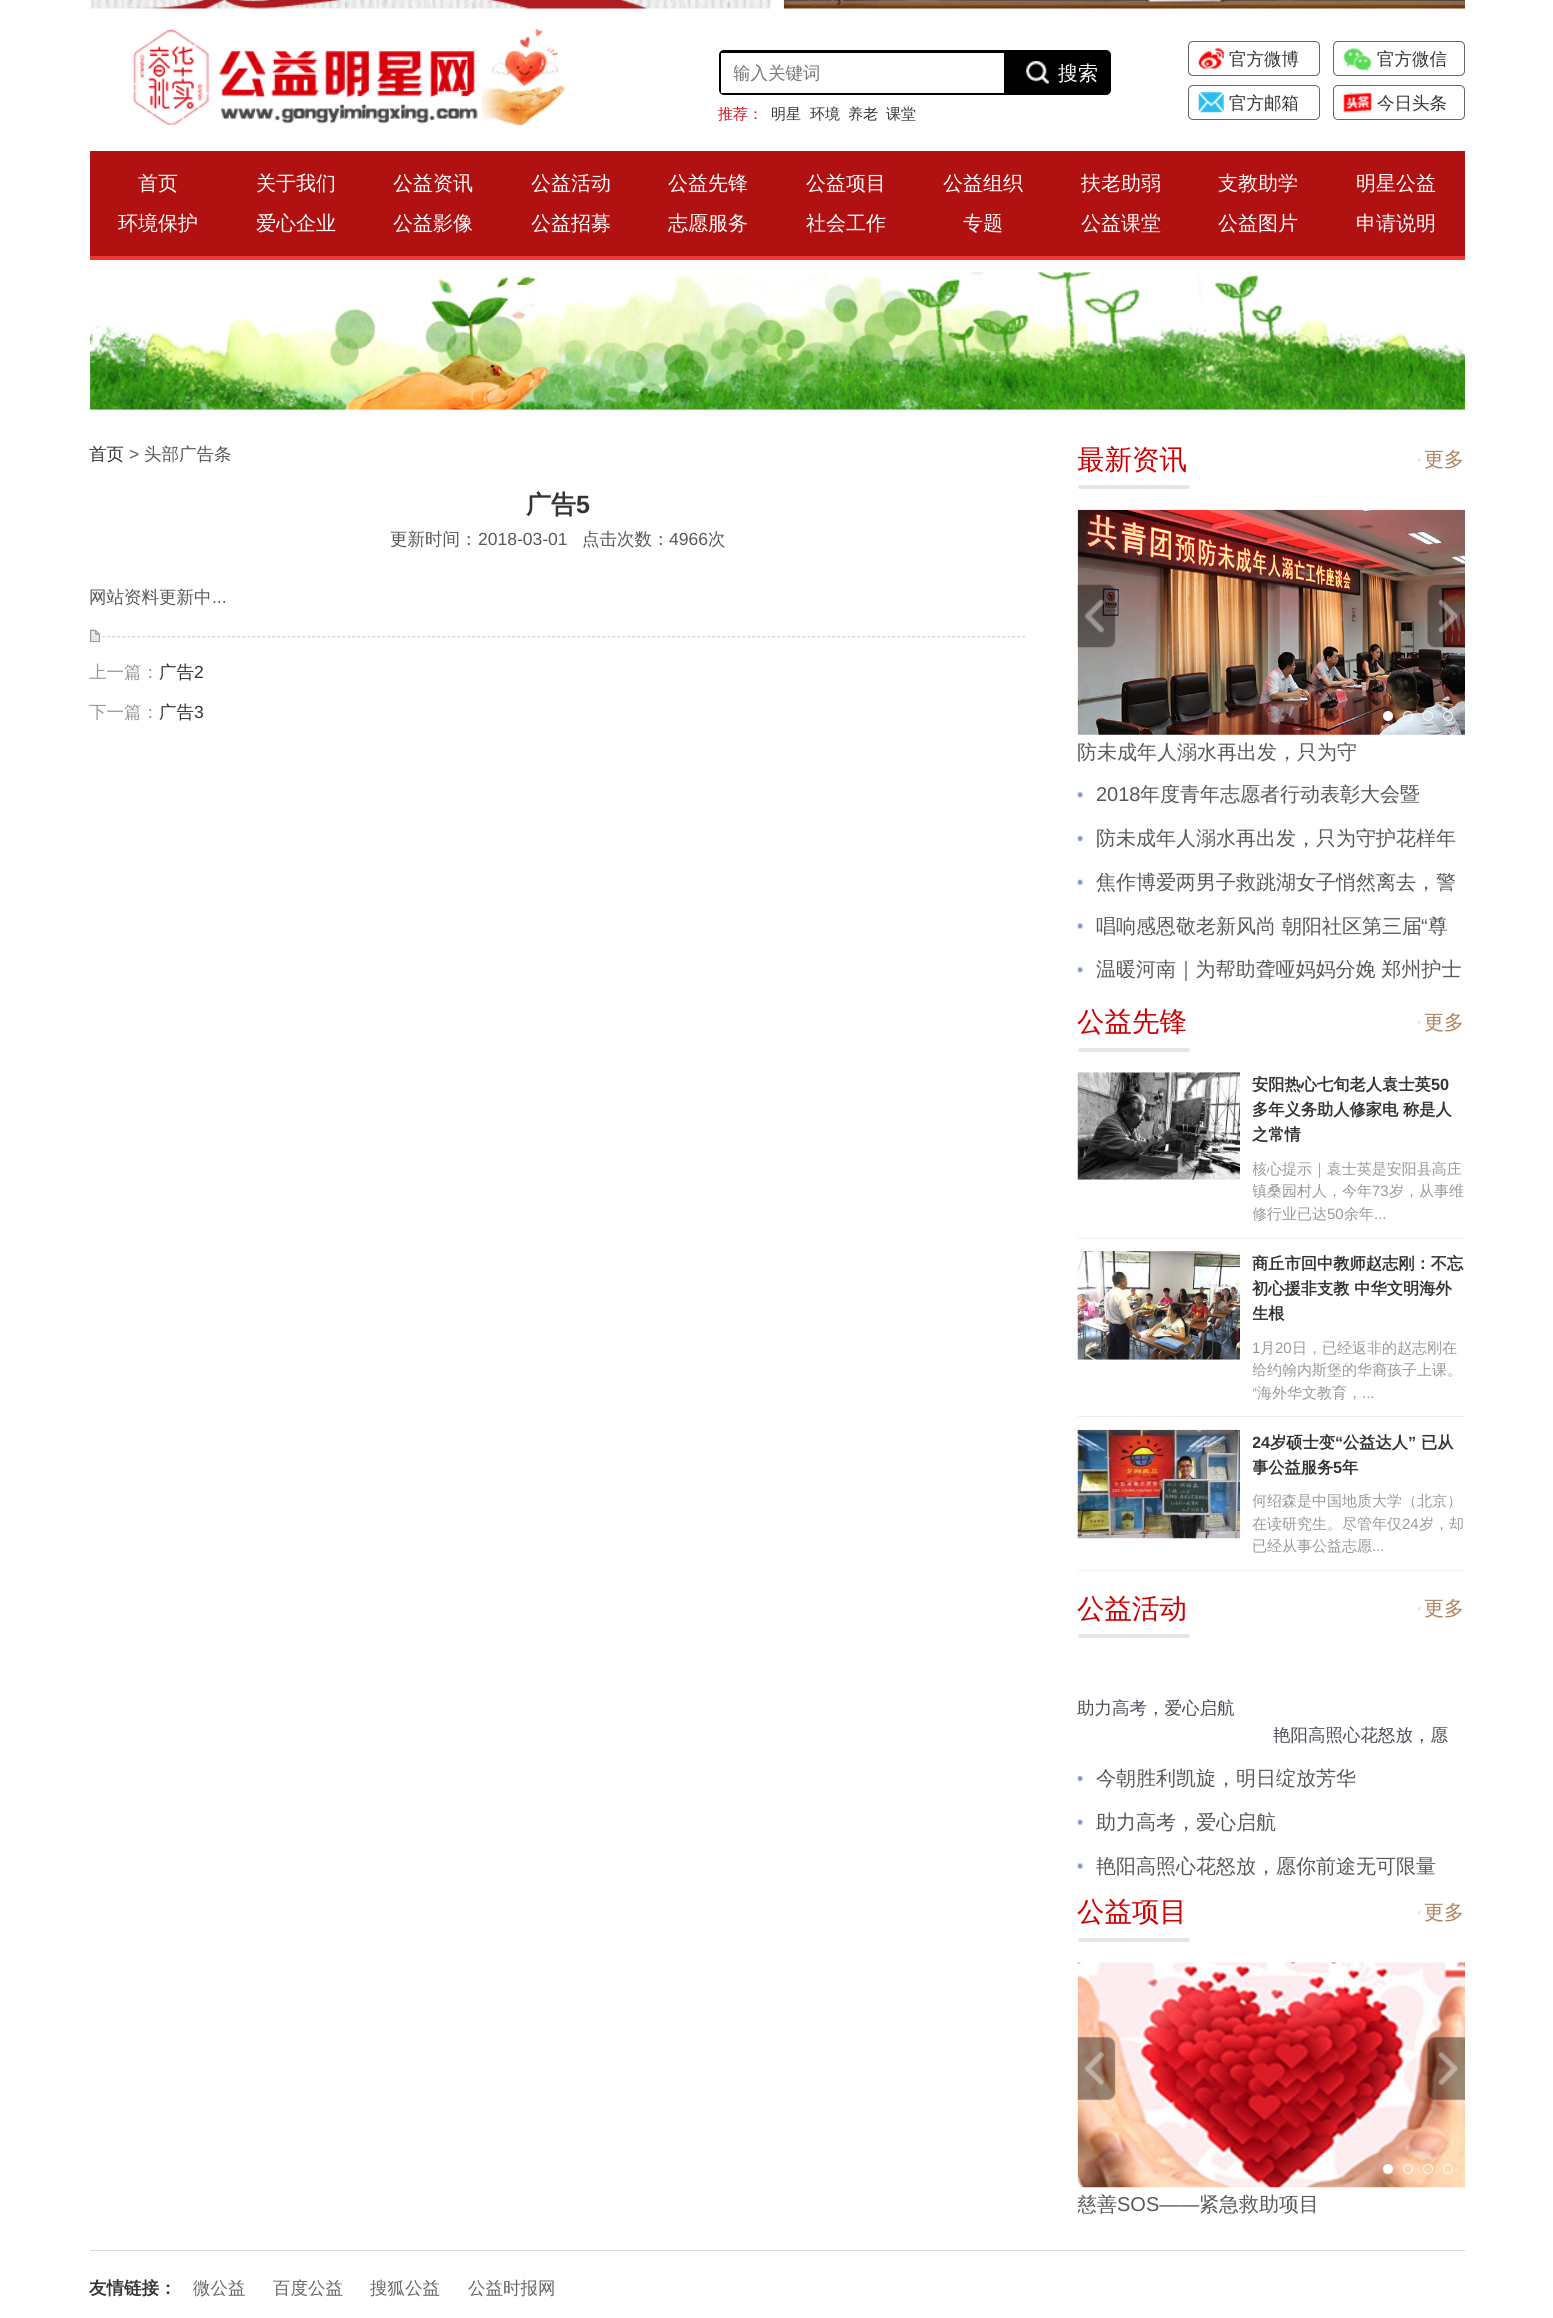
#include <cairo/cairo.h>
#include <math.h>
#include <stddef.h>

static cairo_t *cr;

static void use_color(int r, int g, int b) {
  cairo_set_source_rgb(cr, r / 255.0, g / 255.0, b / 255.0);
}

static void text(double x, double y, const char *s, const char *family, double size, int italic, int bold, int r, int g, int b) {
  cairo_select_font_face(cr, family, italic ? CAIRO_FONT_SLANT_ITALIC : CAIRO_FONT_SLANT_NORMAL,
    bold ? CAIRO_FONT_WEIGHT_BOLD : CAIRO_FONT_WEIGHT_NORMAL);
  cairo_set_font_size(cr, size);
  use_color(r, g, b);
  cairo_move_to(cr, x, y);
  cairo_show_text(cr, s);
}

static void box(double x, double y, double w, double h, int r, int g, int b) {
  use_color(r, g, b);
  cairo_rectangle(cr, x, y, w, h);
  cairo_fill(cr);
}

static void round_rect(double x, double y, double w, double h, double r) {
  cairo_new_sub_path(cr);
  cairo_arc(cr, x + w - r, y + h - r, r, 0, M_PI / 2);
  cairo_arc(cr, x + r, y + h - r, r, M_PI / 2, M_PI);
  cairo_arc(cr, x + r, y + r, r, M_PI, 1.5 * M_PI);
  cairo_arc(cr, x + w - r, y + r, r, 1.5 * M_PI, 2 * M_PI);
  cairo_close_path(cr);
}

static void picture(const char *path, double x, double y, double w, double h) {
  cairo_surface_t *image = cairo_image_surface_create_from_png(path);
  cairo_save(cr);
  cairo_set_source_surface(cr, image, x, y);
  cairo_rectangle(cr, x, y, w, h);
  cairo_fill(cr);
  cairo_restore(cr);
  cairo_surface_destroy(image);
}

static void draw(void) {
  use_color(255, 255, 255);
  cairo_paint(cr);
  picture("img_01.png", 90, 0, 681, 9);
  picture("img_02.png", 783, 0, 682, 9);
  picture("img_03.png", 133, 28, 432, 99);
  use_color(0, 0, 0);
  round_rect(719, 50, 392, 45, 5);
  cairo_fill(cr);
  box(721, 53, 283, 40, 255, 255, 255);
  picture("img_04.png", 1026, 61, 23, 23);
  round_rect(1188.5, 41.5, 131, 34, 4.5);
  use_color(102, 102, 102);
  cairo_set_line_width(cr, 1);
  cairo_stroke(cr);
  picture("img_05.png", 1198, 48, 26, 21);
  round_rect(1333.5, 41.5, 131, 34, 4.5);
  cairo_stroke(cr);
  picture("img_06.png", 1343, 48, 29, 23);
  round_rect(1188.5, 85.5, 131, 34, 4.5);
  cairo_stroke(cr);
  picture("img_07.png", 1198, 92, 26, 21);
  round_rect(1333.5, 85.5, 131, 34, 4.5);
  cairo_stroke(cr);
  picture("img_08.png", 1343, 92, 29, 24);
  box(90, 151, 1375, 105, 178, 17, 18);
  box(90, 256, 1375, 4, 242, 55, 55);
  picture("img_09.png", 90, 272, 1375, 138);
  picture("img_10.png", 100, 636, 928, 2);
  picture("img_11.png", 90, 629, 10, 14);
  picture("img_12.png", 1417, 458, 4, 4);
  use_color(230, 230, 230);
  round_rect(1078, 485, 112, 4, 2);
  cairo_fill(cr);
  picture("img_15.png", 1077, 509, 388, 226);
  picture("img_13.png", 1077, 584, 39, 64);
  picture("img_14.png", 1427, 584, 38, 64);
  use_color(255, 255, 255);
  cairo_arc(cr, 1388, 716, 4.5, 0, 2 * M_PI);
  cairo_fill_preserve(cr);
  use_color(247, 249, 248);
  cairo_stroke(cr);
  cairo_arc(cr, 1408, 716, 4.5, 0, 2 * M_PI);
  use_color(248, 250, 247);
  cairo_stroke(cr);
  cairo_arc(cr, 1428, 716, 4.5, 0, 2 * M_PI);
  cairo_stroke(cr);
  cairo_arc(cr, 1448, 716, 4.5, 0, 2 * M_PI);
  cairo_stroke(cr);
  picture("img_16.png", 1077, 792, 6, 6);
  picture("img_17.png", 1077, 835, 6, 7);
  picture("img_18.png", 1077, 879, 6, 6);
  picture("img_19.png", 1077, 923, 6, 6);
  picture("img_16.png", 1077, 967, 6, 6);
  picture("img_20.png", 1417, 1021, 4, 3);
  use_color(230, 230, 230);
  round_rect(1078, 1048, 112, 4, 2);
  cairo_fill(cr);
  box(1078, 1238, 387, 1, 238, 238, 238);
  picture("img_21.png", 1077, 1072, 163, 108);
  box(1078, 1416, 387, 1, 238, 238, 238);
  picture("img_22.png", 1077, 1251, 163, 109);
  box(1078, 1570, 387, 1, 238, 238, 238);
  picture("img_23.png", 1077, 1429, 163, 110);
  picture("img_24.png", 1417, 1607, 4, 3);
  use_color(230, 230, 230);
  round_rect(1078, 1634, 112, 4, 2);
  cairo_fill(cr);
  picture("img_17.png", 1077, 1775, 6, 7);
  picture("img_18.png", 1077, 1819, 6, 6);
  picture("img_19.png", 1077, 1863, 6, 6);
  picture("img_20.png", 1417, 1911, 4, 3);
  round_rect(1078, 1938, 112, 4, 2);
  cairo_fill(cr);
  picture("img_27.png", 1077, 1962, 388, 226);
  picture("img_25.png", 1077, 2037, 39, 63);
  picture("img_26.png", 1427, 2037, 38, 63);
  use_color(255, 255, 255);
  cairo_arc(cr, 1388, 2169, 4.5, 0, 2 * M_PI);
  cairo_fill_preserve(cr);
  use_color(247, 249, 248);
  cairo_stroke(cr);
  cairo_arc(cr, 1408, 2169, 4.5, 0, 2 * M_PI);
  use_color(248, 250, 247);
  cairo_stroke(cr);
  cairo_arc(cr, 1428, 2169, 4.5, 0, 2 * M_PI);
  cairo_stroke(cr);
  cairo_arc(cr, 1448, 2169, 4.5, 0, 2 * M_PI);
  cairo_stroke(cr);
  box(90, 2250, 1375, 1, 221, 221, 221);
  cairo_save(cr);
  cairo_rectangle(cr, 734, 63, 270, 22);
  cairo_clip(cr);
  text(733, 79, "输入关键词", "WenQuanYi Zen Hei Medium", 17.5, 0, 0, 117, 117, 117);
  cairo_restore(cr);
  text(1058, 80, "搜索", "WenQuanYi Zen Hei Medium", 20, 0, 0, 255, 255, 255);
  text(718, 119, "推荐：", "WenQuanYi Zen Hei Medium", 15, 0, 0, 218, 16, 28);
  text(771, 119, "明星", "WenQuanYi Zen Hei Medium", 15, 0, 0, 51, 51, 51);
  text(810, 119, "环境", "WenQuanYi Zen Hei Medium", 15, 0, 0, 51, 51, 51);
  text(848, 119, "养老", "WenQuanYi Zen Hei Medium", 15, 0, 0, 51, 51, 51);
  text(886, 119, "课堂", "WenQuanYi Zen Hei Medium", 15, 0, 0, 51, 51, 51);
  text(1229, 65, "官方微博", "WenQuanYi Zen Hei Medium", 17.5, 0, 0, 51, 51, 51);
  text(1377, 65, "官方微信", "WenQuanYi Zen Hei Medium", 17.5, 0, 0, 51, 51, 51);
  text(1229, 109, "官方邮箱", "WenQuanYi Zen Hei Medium", 17.5, 0, 0, 51, 51, 51);
  text(1377, 109, "今日头条", "WenQuanYi Zen Hei Medium", 17.5, 0, 0, 51, 51, 51);
  text(138, 190, "首页", "WenQuanYi Zen Hei Medium", 20, 0, 0, 255, 255, 255);
  text(256, 190, "关于我们", "WenQuanYi Zen Hei Medium", 20, 0, 0, 255, 255, 255);
  text(393, 190, "公益资讯", "WenQuanYi Zen Hei Medium", 20, 0, 0, 255, 255, 255);
  text(531, 190, "公益活动", "WenQuanYi Zen Hei Medium", 20, 0, 0, 255, 255, 255);
  text(668, 190, "公益先锋", "WenQuanYi Zen Hei Medium", 20, 0, 0, 255, 255, 255);
  text(806, 190, "公益项目", "WenQuanYi Zen Hei Medium", 20, 0, 0, 255, 255, 255);
  text(943, 190, "公益组织", "WenQuanYi Zen Hei Medium", 20, 0, 0, 255, 255, 255);
  text(1081, 190, "扶老助弱", "WenQuanYi Zen Hei Medium", 20, 0, 0, 255, 255, 255);
  text(1218, 190, "支教助学", "WenQuanYi Zen Hei Medium", 20, 0, 0, 255, 255, 255);
  text(1356, 190, "明星公益", "WenQuanYi Zen Hei Medium", 20, 0, 0, 255, 255, 255);
  text(118, 230, "环境保护", "WenQuanYi Zen Hei Medium", 20, 0, 0, 255, 255, 255);
  text(256, 230, "爱心企业", "WenQuanYi Zen Hei Medium", 20, 0, 0, 255, 255, 255);
  text(393, 230, "公益影像", "WenQuanYi Zen Hei Medium", 20, 0, 0, 255, 255, 255);
  text(531, 230, "公益招募", "WenQuanYi Zen Hei Medium", 20, 0, 0, 255, 255, 255);
  text(668, 230, "志愿服务", "WenQuanYi Zen Hei Medium", 20, 0, 0, 255, 255, 255);
  text(806, 230, "社会工作", "WenQuanYi Zen Hei Medium", 20, 0, 0, 255, 255, 255);
  text(963, 230, "专题", "WenQuanYi Zen Hei Medium", 20, 0, 0, 255, 255, 255);
  text(1081, 230, "公益课堂", "WenQuanYi Zen Hei Medium", 20, 0, 0, 255, 255, 255);
  text(1218, 230, "公益图片", "WenQuanYi Zen Hei Medium", 20, 0, 0, 255, 255, 255);
  text(1356, 230, "申请说明", "WenQuanYi Zen Hei Medium", 20, 0, 0, 255, 255, 255);
  text(89, 460, "首页", "WenQuanYi Zen Hei Medium", 17.5, 0, 0, 51, 51, 51);
  text(129, 460, ">", "Liberation Sans", 17.5, 0, 0, 88, 88, 86);
  text(144, 460, "头部广告条", "WenQuanYi Zen Hei Medium", 17.5, 0, 0, 88, 88, 86);
  text(526, 513, "广告", "WenQuanYi Zen Hei", 25, 0, 1, 51, 51, 51);
  text(576, 513, "5", "Liberation Sans", 25, 0, 1, 51, 51, 51);
  text(390, 545, "更新时间：", "WenQuanYi Zen Hei Medium", 17.5, 0, 0, 88, 88, 86);
  text(478, 545, "2018-03-01", "Liberation Sans", 17.5, 0, 0, 88, 88, 86);
  text(582, 545, "点击次数：", "WenQuanYi Zen Hei Medium", 17.5, 0, 0, 88, 88, 86);
  text(669, 545, "4966", "Liberation Sans", 17.5, 0, 0, 88, 88, 86);
  text(708, 545, "次", "WenQuanYi Zen Hei Medium", 17.5, 0, 0, 88, 88, 86);
  text(89, 603, "网站资料更新中", "WenQuanYi Zen Hei Medium", 17.5, 0, 0, 88, 88, 86);
  text(212, 603, "...", "Liberation Sans", 17.5, 0, 0, 88, 88, 86);
  text(89, 678, "上一篇：", "WenQuanYi Zen Hei Medium", 17.5, 0, 0, 153, 153, 153);
  text(159, 678, "广告", "WenQuanYi Zen Hei Medium", 17.5, 0, 0, 51, 51, 51);
  text(194, 678, "2", "Liberation Sans", 17.5, 0, 0, 51, 51, 51);
  text(89, 718, "下一篇：", "WenQuanYi Zen Hei Medium", 17.5, 0, 0, 153, 153, 153);
  text(159, 718, "广告", "WenQuanYi Zen Hei Medium", 17.5, 0, 0, 51, 51, 51);
  text(194, 718, "3", "Liberation Sans", 17.5, 0, 0, 51, 51, 51);
  cairo_save(cr);
  cairo_rectangle(cr, 1078, 435, 387, 556);
  cairo_clip(cr);
  text(1077, 469, "最新资讯", "WenQuanYi Zen Hei Medium", 27.5, 0, 0, 205, 0, 1);
  cairo_restore(cr);
  text(1424, 466, "更多", "WenQuanYi Zen Hei Medium", 20, 0, 0, 175, 130, 94);
  text(1077, 759, "防未成年人溺水再出发，只为守", "WenQuanYi Zen Hei Medium", 20, 0, 0, 88, 88, 86);
  text(1096, 801, "2018", "Liberation Sans", 20, 0, 0, 88, 88, 86);
  text(1140, 801, "年度青年志愿者行动表彰大会暨", "WenQuanYi Zen Hei Medium", 20, 0, 0, 88, 88, 86);
  text(1096, 845, "防未成年人溺水再出发，只为守护花样年", "WenQuanYi Zen Hei Medium", 20, 0, 0, 88, 88, 86);
  text(1096, 889, "焦作博爱两男子救跳湖女子悄然离去，警", "WenQuanYi Zen Hei Medium", 20, 0, 0, 88, 88, 86);
  text(1096, 933, "唱响感恩敬老新风尚 朝阳社区第三届", "WenQuanYi Zen Hei Medium", 20, 0, 0, 88, 88, 86);
  text(1421, 933, "“", "Liberation Sans", 20, 0, 0, 88, 88, 86);
  text(1428, 933, "尊", "WenQuanYi Zen Hei Medium", 20, 0, 0, 88, 88, 86);
  text(1096, 976, "温暖河南｜为帮助聋哑妈妈分娩 郑州护士", "WenQuanYi Zen Hei Medium", 20, 0, 0, 88, 88, 86);
  text(1077, 1031, "公益先锋", "WenQuanYi Zen Hei Medium", 27.5, 0, 0, 205, 0, 1);
  text(1424, 1029, "更多", "WenQuanYi Zen Hei Medium", 20, 0, 0, 175, 130, 94);
  text(1252, 1090, "安阳热心七旬老人袁士英", "WenQuanYi Zen Hei", 16.25, 0, 1, 51, 51, 51);
  text(1431, 1090, "50", "Liberation Sans", 16.25, 0, 1, 51, 51, 51);
  text(1252, 1115, "多年义务助人修家电 称是人", "WenQuanYi Zen Hei", 16.25, 0, 1, 51, 51, 51);
  text(1252, 1140, "之常情", "WenQuanYi Zen Hei", 16.25, 0, 1, 51, 51, 51);
  cairo_save(cr);
  cairo_rectangle(cr, 1253, 1073, 212, 152);
  cairo_clip(cr);
  text(1252, 1174, "核心提示｜袁士英是安阳县高庄", "WenQuanYi Zen Hei Medium", 15, 0, 0, 153, 153, 153);
  text(1252, 1196, "镇桑园村人，今年", "WenQuanYi Zen Hei Medium", 15, 0, 0, 153, 153, 153);
  cairo_restore(cr);
  text(1372, 1196, "73", "Liberation Sans", 15, 0, 0, 153, 153, 153);
  text(1389, 1196, "岁，从事维", "WenQuanYi Zen Hei Medium", 15, 0, 0, 153, 153, 153);
  cairo_save(cr);
  cairo_rectangle(cr, 1253, 1073, 212, 152);
  cairo_clip(cr);
  text(1252, 1219, "修行业已达", "WenQuanYi Zen Hei Medium", 15, 0, 0, 153, 153, 153);
  cairo_restore(cr);
  text(1327, 1219, "50", "Liberation Sans", 15, 0, 0, 153, 153, 153);
  text(1344, 1219, "余年", "WenQuanYi Zen Hei Medium", 15, 0, 0, 153, 153, 153);
  text(1374, 1219, "...", "Liberation Sans", 15, 0, 0, 153, 153, 153);
  text(1252, 1269, "商丘市回中教师赵志刚：不忘", "WenQuanYi Zen Hei", 16.25, 0, 1, 51, 51, 51);
  text(1252, 1294, "初心援非支教 中华文明海外", "WenQuanYi Zen Hei", 16.25, 0, 1, 51, 51, 51);
  cairo_save(cr);
  cairo_rectangle(cr, 1253, 1251, 212, 153);
  cairo_clip(cr);
  text(1252, 1319, "生根", "WenQuanYi Zen Hei", 16.25, 0, 1, 51, 51, 51);
  cairo_restore(cr);
  text(1252, 1353, "1", "Liberation Sans", 15, 0, 0, 153, 153, 153);
  text(1260, 1353, "月", "WenQuanYi Zen Hei Medium", 15, 0, 0, 153, 153, 153);
  text(1275, 1353, "20", "Liberation Sans", 15, 0, 0, 153, 153, 153);
  text(1292, 1353, "日，已经返非的赵志刚在", "WenQuanYi Zen Hei Medium", 15, 0, 0, 153, 153, 153);
  cairo_save(cr);
  cairo_rectangle(cr, 1253, 1251, 212, 153);
  cairo_clip(cr);
  text(1252, 1375, "给约翰内斯堡的华裔孩子上课。", "WenQuanYi Zen Hei Medium", 15, 0, 0, 153, 153, 153);
  text(1252, 1398, "“", "Liberation Sans", 15, 0, 0, 153, 153, 153);
  cairo_restore(cr);
  text(1257, 1398, "海外华文教育，", "WenQuanYi Zen Hei Medium", 15, 0, 0, 153, 153, 153);
  text(1362, 1398, "...", "Liberation Sans", 15, 0, 0, 153, 153, 153);
  cairo_save(cr);
  cairo_rectangle(cr, 1253, 1430, 212, 128);
  cairo_clip(cr);
  text(1252, 1448, "24", "Liberation Sans", 16.25, 0, 1, 51, 51, 51);
  cairo_restore(cr);
  text(1270, 1448, "岁硕士变", "WenQuanYi Zen Hei", 16.25, 0, 1, 51, 51, 51);
  text(1335, 1448, "“", "Liberation Sans", 16.25, 0, 1, 51, 51, 51);
  text(1343, 1448, "公益达人", "WenQuanYi Zen Hei", 16.25, 0, 1, 51, 51, 51);
  text(1408, 1448, "”", "Liberation Sans", 16.25, 0, 1, 51, 51, 51);
  text(1421, 1448, "已从", "WenQuanYi Zen Hei", 16.25, 0, 1, 51, 51, 51);
  cairo_save(cr);
  cairo_rectangle(cr, 1253, 1430, 212, 128);
  cairo_clip(cr);
  text(1252, 1473, "事公益服务", "WenQuanYi Zen Hei", 16.25, 0, 1, 51, 51, 51);
  cairo_restore(cr);
  text(1333, 1473, "5", "Liberation Sans", 16.25, 0, 1, 51, 51, 51);
  text(1342, 1473, "年", "WenQuanYi Zen Hei", 16.25, 0, 1, 51, 51, 51);
  cairo_save(cr);
  cairo_rectangle(cr, 1253, 1430, 212, 128);
  cairo_clip(cr);
  text(1252, 1506, "何绍森是中国地质大学（北京）", "WenQuanYi Zen Hei Medium", 15, 0, 0, 153, 153, 153);
  cairo_restore(cr);
  text(1252, 1529, "在读研究生。尽管年仅", "WenQuanYi Zen Hei Medium", 15, 0, 0, 153, 153, 153);
  text(1402, 1529, "24", "Liberation Sans", 15, 0, 0, 153, 153, 153);
  text(1419, 1529, "岁，却", "WenQuanYi Zen Hei Medium", 15, 0, 0, 153, 153, 153);
  text(1252, 1551, "已经从事公益志愿", "WenQuanYi Zen Hei Medium", 15, 0, 0, 153, 153, 153);
  text(1372, 1551, "...", "Liberation Sans", 15, 0, 0, 153, 153, 153);
  text(1077, 1618, "公益活动", "WenQuanYi Zen Hei Medium", 27.5, 0, 0, 205, 0, 1);
  text(1424, 1615, "更多", "WenQuanYi Zen Hei Medium", 20, 0, 0, 175, 130, 94);
  text(1077, 1714, "助力高考，爱心启航", "WenQuanYi Zen Hei Medium", 17.5, 0, 0, 77, 75, 88);
  text(1273, 1741, "艳阳高照心花怒放，愿", "WenQuanYi Zen Hei Medium", 17.5, 0, 0, 77, 75, 88);
  text(1096, 1785, "今朝胜利凯旋，明日绽放芳华", "WenQuanYi Zen Hei Medium", 20, 0, 0, 88, 88, 86);
  text(1096, 1829, "助力高考，爱心启航", "WenQuanYi Zen Hei Medium", 20, 0, 0, 88, 88, 86);
  text(1096, 1873, "艳阳高照心花怒放，愿你前途无可限量", "WenQuanYi Zen Hei Medium", 20, 0, 0, 88, 88, 86);
  text(1077, 1921, "公益项目", "WenQuanYi Zen Hei Medium", 27.5, 0, 0, 205, 0, 1);
  text(1424, 1919, "更多", "WenQuanYi Zen Hei Medium", 20, 0, 0, 175, 130, 94);
  cairo_save(cr);
  cairo_rectangle(cr, 1078, 2185, 292, 40);
  cairo_clip(cr);
  text(1077, 2211, "慈善", "WenQuanYi Zen Hei Medium", 20, 0, 0, 88, 88, 86);
  cairo_restore(cr);
  text(1117, 2211, "SOS——", "Liberation Sans", 20, 0, 0, 88, 88, 86);
  text(1199, 2211, "紧急救助项目", "WenQuanYi Zen Hei Medium", 20, 0, 0, 88, 88, 86);
  text(89, 2294, "友情链接：", "WenQuanYi Zen Hei", 17.5, 0, 1, 51, 51, 51);
  text(193, 2294, "微公益", "WenQuanYi Zen Hei Medium", 17.5, 0, 0, 102, 102, 102);
  text(273, 2294, "百度公益", "WenQuanYi Zen Hei Medium", 17.5, 0, 0, 102, 102, 102);
  text(370, 2294, "搜狐公益", "WenQuanYi Zen Hei Medium", 17.5, 0, 0, 102, 102, 102);
  text(468, 2294, "公益时报网", "WenQuanYi Zen Hei Medium", 17.5, 0, 0, 102, 102, 102);
}

int main(void) {
  cairo_surface_t *surface = cairo_image_surface_create(CAIRO_FORMAT_RGB24, 1553, 2318);
  cr = cairo_create(surface);
  cairo_font_options_t *options = cairo_font_options_create();
  cairo_font_options_set_hint_metrics(options, CAIRO_HINT_METRICS_OFF);
  cairo_font_options_set_hint_style(options, CAIRO_HINT_STYLE_NONE);
  cairo_set_font_options(cr, options);
  cairo_set_miter_limit(cr, 4);
  draw();
  cairo_surface_write_to_png(surface, "out.png");
  cairo_font_options_destroy(options);
  cairo_destroy(cr);
  cairo_surface_destroy(surface);
  return 0;
}
